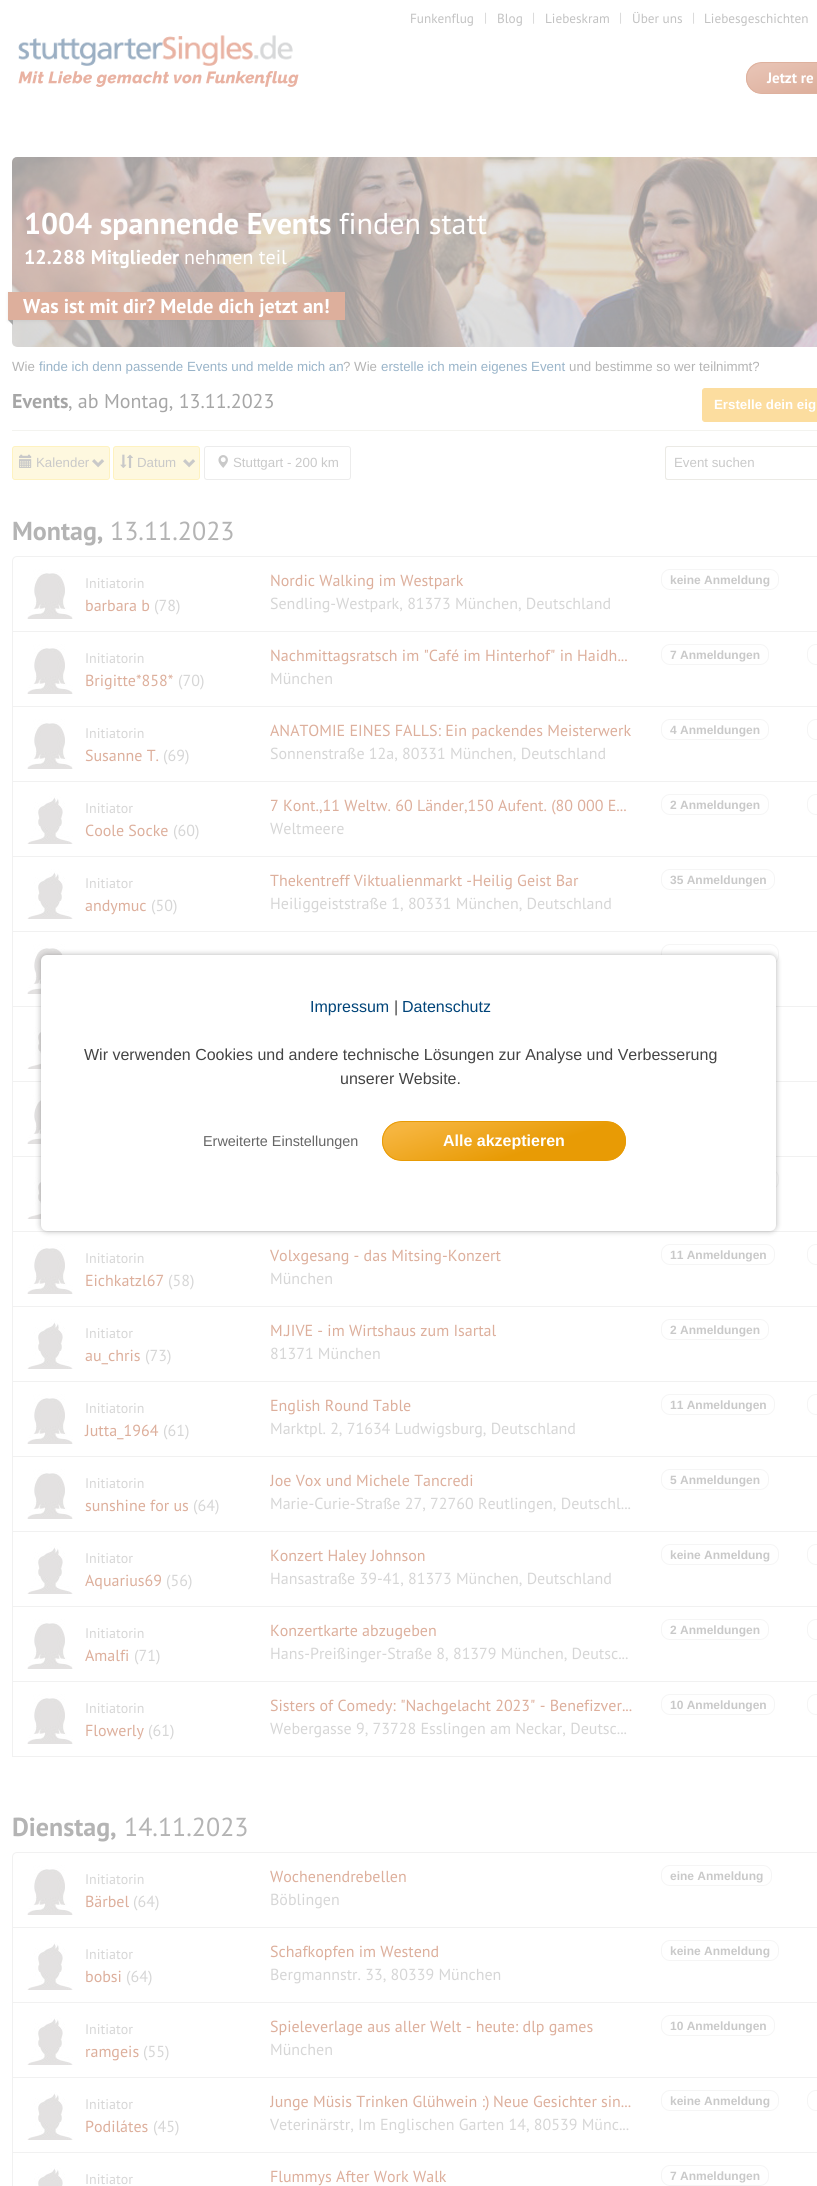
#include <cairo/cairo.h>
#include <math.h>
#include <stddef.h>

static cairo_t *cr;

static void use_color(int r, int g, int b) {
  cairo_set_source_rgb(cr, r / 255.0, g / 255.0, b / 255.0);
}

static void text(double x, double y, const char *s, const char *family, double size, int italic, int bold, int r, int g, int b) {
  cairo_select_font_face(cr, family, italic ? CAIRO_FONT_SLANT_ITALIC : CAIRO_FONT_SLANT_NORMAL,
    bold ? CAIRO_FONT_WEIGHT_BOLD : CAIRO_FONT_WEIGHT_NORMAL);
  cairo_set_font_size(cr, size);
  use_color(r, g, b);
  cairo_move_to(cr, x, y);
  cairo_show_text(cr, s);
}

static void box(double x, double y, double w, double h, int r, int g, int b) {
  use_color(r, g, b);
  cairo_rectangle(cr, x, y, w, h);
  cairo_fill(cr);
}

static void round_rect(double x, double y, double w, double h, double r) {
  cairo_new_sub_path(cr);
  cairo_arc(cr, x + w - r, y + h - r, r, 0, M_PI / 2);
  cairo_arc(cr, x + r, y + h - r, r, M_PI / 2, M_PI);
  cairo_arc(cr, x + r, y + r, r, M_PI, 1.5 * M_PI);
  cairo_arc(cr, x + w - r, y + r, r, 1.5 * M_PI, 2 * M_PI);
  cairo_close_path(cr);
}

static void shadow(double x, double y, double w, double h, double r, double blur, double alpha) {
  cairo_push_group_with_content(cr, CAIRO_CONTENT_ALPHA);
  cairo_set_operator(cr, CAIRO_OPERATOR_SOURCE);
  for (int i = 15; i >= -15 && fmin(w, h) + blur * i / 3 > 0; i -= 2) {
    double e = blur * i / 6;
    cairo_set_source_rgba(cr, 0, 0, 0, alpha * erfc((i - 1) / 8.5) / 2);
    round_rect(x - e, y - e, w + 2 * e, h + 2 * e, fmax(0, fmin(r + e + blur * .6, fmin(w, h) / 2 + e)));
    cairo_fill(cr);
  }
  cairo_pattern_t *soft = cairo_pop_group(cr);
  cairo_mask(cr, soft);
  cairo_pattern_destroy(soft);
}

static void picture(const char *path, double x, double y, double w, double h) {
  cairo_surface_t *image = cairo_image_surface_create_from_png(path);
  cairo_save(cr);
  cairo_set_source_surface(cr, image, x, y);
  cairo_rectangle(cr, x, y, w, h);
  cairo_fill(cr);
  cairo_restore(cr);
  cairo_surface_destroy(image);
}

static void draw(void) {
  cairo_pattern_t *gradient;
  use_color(255, 255, 255);
  cairo_paint(cr);
  picture("img_01.png", 18, 35, 281, 52);
  cairo_save(cr);
  round_rect(746, 62, 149, 32, 16);
  cairo_clip(cr);
  gradient = cairo_pattern_create_linear(789, 36, 816, 120);
  cairo_pattern_add_color_stop_rgba(gradient, 0.24, 0.906, 0.761, 0.702, 1);
  cairo_pattern_add_color_stop_rgba(gradient, 0.7, 0.867, 0.686, 0.612, 1);
  cairo_set_source(cr, gradient);
  cairo_pattern_destroy(gradient);
  cairo_rectangle(cr, 746, 63, 71, 30);
  cairo_fill(cr);
  cairo_restore(cr);
  round_rect(746.5, 62.5, 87, 31, 15.5);
  use_color(222, 177, 158);
  cairo_set_line_width(cr, 1);
  cairo_stroke(cr);
  picture("img_02.png", 12, 157, 805, 190);
  use_color(153, 153, 153);
  shadow(8, 293, 337, 28, 0, 1.5, 0.2);
  box(8, 292, 337, 28, 221, 175, 156);
  use_color(167, 167, 167);
  cairo_new_path(cr);
  cairo_move_to(cr, 13, 320);
  cairo_line_to(cr, 13, 325);
  cairo_line_to(cr, 8, 320);
  cairo_close_path(cr);
  cairo_fill(cr);
  use_color(252, 221, 159);
  round_rect(702.5, 388.5, 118, 33, 2.5);
  cairo_fill_preserve(cr);
  cairo_stroke(cr);
  box(12, 430, 805, 1, 243, 243, 239);
  use_color(254, 248, 223);
  round_rect(12.5, 446.5, 97, 33, 2.5);
  cairo_fill_preserve(cr);
  use_color(254, 242, 192);
  cairo_stroke(cr);
  picture("img_03.png", 19, 454, 13, 14);
  picture("img_04.png", 92, 459, 13, 9);
  use_color(254, 248, 223);
  round_rect(113.5, 446.5, 86, 33, 2.5);
  cairo_fill_preserve(cr);
  use_color(254, 242, 192);
  cairo_stroke(cr);
  picture("img_05.png", 120, 454, 13, 14);
  picture("img_04.png", 183, 459, 13, 9);
  round_rect(204.5, 446.5, 146, 33, 2.5);
  use_color(236, 236, 236);
  cairo_stroke(cr);
  picture("img_06.png", 218, 455, 10, 13);
  use_color(235, 234, 229);
  cairo_set_fill_rule(cr, CAIRO_FILL_RULE_EVEN_ODD);
  cairo_new_path(cr);
  cairo_move_to(cr, 668, 446);
  cairo_line_to(cr, 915, 446);
  cairo_line_to(cr, 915, 480);
  cairo_line_to(cr, 668, 480);
  cairo_curve_to(cr, 666, 480, 665, 479, 665, 477);
  cairo_line_to(cr, 665, 449);
  cairo_curve_to(cr, 665, 447, 666, 446, 668, 446);
  cairo_close_path(cr);
  cairo_move_to(cr, 668, 447);
  cairo_line_to(cr, 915, 447);
  cairo_line_to(cr, 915, 479);
  cairo_line_to(cr, 668, 479);
  cairo_curve_to(cr, 667, 479, 666, 478, 666, 477);
  cairo_line_to(cr, 666, 449);
  cairo_curve_to(cr, 666, 448, 667, 447, 668, 447);
  cairo_close_path(cr);
  cairo_fill(cr);
  cairo_new_path(cr);
  cairo_move_to(cr, 17, 556.5);
  cairo_line_to(cr, 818, 556.5);
  cairo_curve_to(cr, 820.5, 556.5, 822.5, 558.5, 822.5, 561);
  cairo_line_to(cr, 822.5, 631.5);
  cairo_line_to(cr, 12.5, 631.5);
  cairo_line_to(cr, 12.5, 561);
  cairo_curve_to(cr, 12.5, 558.5, 14.5, 556.5, 17, 556.5);
  cairo_close_path(cr);
  use_color(241, 241, 241);
  cairo_stroke(cr);
  picture("img_07.png", 27, 569, 46, 50);
  round_rect(661.5, 569.5, 117, 20, 8.5);
  use_color(245, 245, 245);
  cairo_stroke(cr);
  box(12, 706, 805, 1, 241, 241, 241);
  box(12, 632, 1, 75, 241, 241, 241);
  picture("img_07.png", 27, 644, 46, 50);
  round_rect(661.5, 644.5, 107, 20, 8.5);
  use_color(245, 245, 245);
  cairo_stroke(cr);
  round_rect(807.5, 644.5, 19, 20, 8.5);
  cairo_stroke(cr);
  box(12, 781, 805, 1, 241, 241, 241);
  box(12, 707, 1, 75, 241, 241, 241);
  picture("img_07.png", 27, 719, 46, 50);
  round_rect(661.5, 719.5, 107, 20, 8.5);
  use_color(245, 245, 245);
  cairo_stroke(cr);
  round_rect(807.5, 719.5, 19, 20, 8.5);
  cairo_stroke(cr);
  box(12, 856, 805, 1, 241, 241, 241);
  box(12, 782, 1, 75, 241, 241, 241);
  picture("img_08.png", 27, 794, 46, 50);
  round_rect(661.5, 794.5, 107, 20, 8.5);
  use_color(245, 245, 245);
  cairo_stroke(cr);
  round_rect(807.5, 794.5, 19, 20, 8.5);
  cairo_stroke(cr);
  box(12, 931, 805, 1, 241, 241, 241);
  box(12, 857, 1, 75, 241, 241, 241);
  picture("img_08.png", 27, 869, 46, 50);
  round_rect(661.5, 869.5, 113, 20, 8.5);
  use_color(245, 245, 245);
  cairo_stroke(cr);
  box(12, 1006, 805, 1, 241, 241, 241);
  box(12, 932, 1, 75, 241, 241, 241);
  picture("img_07.png", 27, 944, 46, 50);
  round_rect(661.5, 944.5, 117, 20, 8.5);
  use_color(245, 245, 245);
  cairo_stroke(cr);
  box(12, 1081, 805, 1, 241, 241, 241);
  box(12, 1007, 1, 75, 241, 241, 241);
  picture("img_09.png", 27, 1019, 14, 50);
  box(12, 1156, 805, 1, 241, 241, 241);
  box(12, 1082, 1, 75, 241, 241, 241);
  picture("img_10.png", 27, 1094, 14, 50);
  box(12, 1231, 805, 1, 241, 241, 241);
  box(12, 1157, 1, 75, 241, 241, 241);
  picture("img_09.png", 27, 1169, 14, 50);
  round_rect(661.5, 1169.5, 117, 20, 8.5);
  use_color(245, 245, 245);
  cairo_stroke(cr);
  box(12, 1306, 805, 1, 241, 241, 241);
  box(12, 1232, 1, 75, 241, 241, 241);
  picture("img_07.png", 27, 1244, 46, 50);
  round_rect(661.5, 1244.5, 113, 20, 8.5);
  use_color(245, 245, 245);
  cairo_stroke(cr);
  round_rect(807.5, 1244.5, 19, 20, 8.5);
  cairo_stroke(cr);
  box(12, 1381, 805, 1, 241, 241, 241);
  box(12, 1307, 1, 75, 241, 241, 241);
  picture("img_08.png", 27, 1319, 46, 50);
  round_rect(661.5, 1319.5, 107, 20, 8.5);
  use_color(245, 245, 245);
  cairo_stroke(cr);
  box(12, 1456, 805, 1, 241, 241, 241);
  box(12, 1382, 1, 75, 241, 241, 241);
  picture("img_07.png", 27, 1394, 46, 50);
  round_rect(661.5, 1394.5, 113, 20, 8.5);
  use_color(245, 245, 245);
  cairo_stroke(cr);
  round_rect(807.5, 1394.5, 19, 20, 8.5);
  cairo_stroke(cr);
  box(12, 1531, 805, 1, 241, 241, 241);
  box(12, 1457, 1, 75, 241, 241, 241);
  picture("img_07.png", 27, 1469, 46, 50);
  round_rect(661.5, 1469.5, 107, 20, 8.5);
  use_color(245, 245, 245);
  cairo_stroke(cr);
  box(12, 1606, 805, 1, 241, 241, 241);
  box(12, 1532, 1, 75, 241, 241, 241);
  picture("img_08.png", 27, 1544, 46, 50);
  round_rect(661.5, 1544.5, 117, 20, 8.5);
  use_color(245, 245, 245);
  cairo_stroke(cr);
  round_rect(807.5, 1544.5, 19, 20, 8.5);
  cairo_stroke(cr);
  box(12, 1681, 805, 1, 241, 241, 241);
  box(12, 1607, 1, 75, 241, 241, 241);
  picture("img_07.png", 27, 1619, 46, 50);
  round_rect(661.5, 1619.5, 107, 20, 8.5);
  use_color(245, 245, 245);
  cairo_stroke(cr);
  round_rect(807.5, 1619.5, 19, 20, 8.5);
  cairo_stroke(cr);
  box(12, 1756, 805, 1, 241, 241, 241);
  box(12, 1682, 1, 75, 241, 241, 241);
  picture("img_07.png", 27, 1694, 46, 50);
  round_rect(661.5, 1694.5, 113, 20, 8.5);
  use_color(245, 245, 245);
  cairo_stroke(cr);
  round_rect(807.5, 1694.5, 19, 20, 8.5);
  cairo_stroke(cr);
  cairo_new_path(cr);
  cairo_move_to(cr, 17, 1852.5);
  cairo_line_to(cr, 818, 1852.5);
  cairo_curve_to(cr, 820.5, 1852.5, 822.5, 1854.5, 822.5, 1857);
  cairo_line_to(cr, 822.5, 1927.5);
  cairo_line_to(cr, 12.5, 1927.5);
  cairo_line_to(cr, 12.5, 1857);
  cairo_curve_to(cr, 12.5, 1854.5, 14.5, 1852.5, 17, 1852.5);
  cairo_close_path(cr);
  use_color(241, 241, 241);
  cairo_stroke(cr);
  picture("img_07.png", 27, 1865, 46, 50);
  round_rect(661.5, 1865.5, 110, 20, 8.5);
  use_color(245, 245, 245);
  cairo_stroke(cr);
  box(12, 2002, 805, 1, 241, 241, 241);
  box(12, 1928, 1, 75, 241, 241, 241);
  picture("img_08.png", 27, 1940, 46, 50);
  round_rect(661.5, 1940.5, 117, 20, 8.5);
  use_color(245, 245, 245);
  cairo_stroke(cr);
  box(12, 2077, 805, 1, 241, 241, 241);
  box(12, 2003, 1, 75, 241, 241, 241);
  picture("img_08.png", 27, 2015, 46, 50);
  round_rect(661.5, 2015.5, 113, 20, 8.5);
  use_color(245, 245, 245);
  cairo_stroke(cr);
  box(12, 2152, 805, 1, 241, 241, 241);
  box(12, 2078, 1, 108, 241, 241, 241);
  picture("img_08.png", 27, 2090, 46, 50);
  round_rect(661.5, 2090.5, 117, 20, 8.5);
  use_color(245, 245, 245);
  cairo_stroke(cr);
  round_rect(807.5, 2090.5, 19, 20, 8.5);
  cairo_stroke(cr);
  picture("img_11.png", 34, 2165, 31, 21);
  round_rect(661.5, 2165.5, 107, 20, 8.5);
  cairo_stroke(cr);
  use_color(0, 0, 0);
  shadow(41, 955, 735, 276, 6, 3, 0.3);
  use_color(255, 255, 255);
  round_rect(41, 955, 735, 276, 6);
  cairo_fill(cr);
  cairo_save(cr);
  cairo_set_fill_rule(cr, CAIRO_FILL_RULE_WINDING);
  round_rect(382, 1121, 244, 40, 20);
  cairo_clip(cr);
  gradient = cairo_pattern_create_linear(451, 1078, 492, 1204);
  cairo_pattern_add_color_stop_rgba(gradient, 0.24, 0.965, 0.71, 0.247, 1);
  cairo_pattern_add_color_stop_rgba(gradient, 0.7, 0.91, 0.608, 0.02, 1);
  cairo_set_source(cr, gradient);
  cairo_pattern_destroy(gradient);
  cairo_rectangle(cr, 382, 1122, 244, 38);
  cairo_fill(cr);
  cairo_restore(cr);
  round_rect(382.5, 1121.5, 243, 39, 19.5);
  use_color(232, 155, 5);
  cairo_stroke(cr);
  text(410, 23, "Funkenflug", "PT Sans", 13.25, 0, 0, 194, 194, 194);
  text(484, 22, "|", "PT Sans", 13.25, 0, 0, 214, 214, 214);
  text(497, 23, "Blog", "PT Sans", 13.25, 0, 0, 194, 194, 194);
  text(532, 22, "|", "PT Sans", 13.25, 0, 0, 214, 214, 214);
  text(545, 23, "Liebeskram", "PT Sans", 13.25, 0, 0, 194, 194, 194);
  text(619, 22, "|", "PT Sans", 13.25, 0, 0, 214, 214, 214);
  text(632, 23, "Über uns", "PT Sans", 13.25, 0, 0, 194, 194, 194);
  text(692, 22, "|", "PT Sans", 13.25, 0, 0, 214, 214, 214);
  text(704, 23, "Liebesgeschichten", "PT Sans", 13.25, 0, 0, 194, 194, 194);
  text(767, 83, "Jetzt re", "PT Sans", 15, 0, 1, 255, 255, 255);
  text(24, 234, "1004 spannende Events", "PT Sans", 30, 0, 1, 255, 255, 255);
  text(339, 234, "finden statt", "PT Sans", 30, 0, 0, 255, 255, 255);
  text(24, 264, "12.288 Mitglieder", "PT Sans", 20, 0, 1, 255, 255, 255);
  text(184, 264, "nehmen teil", "PT Sans", 20, 0, 0, 255, 255, 255);
  text(23, 313, "Was ist mit dir? Melde dich jetzt an!", "PT Sans", 20, 0, 1, 255, 255, 255);
  text(12, 371, "Wie", "Liberation Sans", 13.3, 0, 0, 180, 180, 180);
  text(39, 371, "finde ich denn passende Events und melde mich an", "Liberation Sans", 13.3, 0, 0, 153, 180, 201);
  text(343, 371, "? Wie", "Liberation Sans", 13.3, 0, 0, 180, 180, 180);
  text(381, 371, "erstelle ich mein eigenes Event", "Liberation Sans", 13.3, 0, 0, 153, 180, 201);
  text(569, 371, "und bestimme so wer teilnimmt?", "Liberation Sans", 13.3, 0, 0, 180, 180, 180);
  text(12, 408, "Events", "PT Sans", 20, 0, 1, 166, 166, 166);
  text(68, 408, ", ab Montag, 13.11.2023", "PT Sans", 20, 0, 0, 166, 166, 166);
  text(714, 409, "Erstelle dein eig", "Liberation Sans", 13.3, 0, 1, 255, 255, 255);
  text(36, 467, "Kalender", "Liberation Sans", 13.3, 0, 0, 201, 201, 201);
  text(137, 467, "Datum", "Liberation Sans", 13.3, 0, 0, 201, 201, 201);
  text(233, 467, "Stuttgart - 200 km", "Liberation Sans", 13.3, 0, 0, 201, 201, 201);
  text(674, 467, "Event suchen", "Liberation Sans", 13.3, 0, 0, 201, 201, 201);
  text(12, 540, "Montag,", "PT Sans", 26, 0, 1, 180, 180, 180);
  text(110, 540, "13.11.2023", "PT Sans", 26, 0, 0, 180, 180, 180);
  text(85, 588, "Initiatorin", "PT Sans", 14, 0, 0, 214, 214, 214);
  text(85, 611, "barbara b", "PT Sans", 16, 0, 0, 221, 175, 156);
  text(154, 611, "(78)", "PT Sans", 16, 0, 0, 214, 214, 214);
  text(270, 586, "Nordic Walking im Westpark", "PT Sans", 16, 0, 0, 221, 175, 156);
  text(270, 609, "Sendling-Westpark, 81373 München, Deutschland", "PT Sans", 16, 0, 0, 214, 214, 214);
  text(670, 584, "keine Anmeldung", "Liberation Sans", 12, 0, 1, 201, 201, 201);
  text(85, 663, "Initiatorin", "PT Sans", 14, 0, 0, 214, 214, 214);
  text(85, 686, "Brigitte*858*", "PT Sans", 16, 0, 0, 221, 175, 156);
  text(178, 686, "(70)", "PT Sans", 16, 0, 0, 214, 214, 214);
  text(270, 661, "Nachmittagsratsch im \"Café im Hinterhof\" in Haidh...", "PT Sans", 16, 0, 0, 221, 175, 156);
  text(270, 684, "München", "PT Sans", 16, 0, 0, 214, 214, 214);
  text(670, 659, "7 Anmeldungen", "Liberation Sans", 12, 0, 1, 201, 201, 201);
  text(85, 738, "Initiatorin", "PT Sans", 14, 0, 0, 214, 214, 214);
  text(85, 761, "Susanne T.", "PT Sans", 16, 0, 0, 221, 175, 156);
  text(163, 761, "(69)", "PT Sans", 16, 0, 0, 214, 214, 214);
  text(270, 736, "ANATOMIE EINES FALLS: Ein packendes Meisterwerk", "PT Sans", 16, 0, 0, 221, 175, 156);
  text(270, 759, "Sonnenstraße 12a, 80331 München, Deutschland", "PT Sans", 16, 0, 0, 214, 214, 214);
  text(670, 734, "4 Anmeldungen", "Liberation Sans", 12, 0, 1, 201, 201, 201);
  text(85, 813, "Initiator", "PT Sans", 14, 0, 0, 214, 214, 214);
  text(85, 836, "Coole Socke", "PT Sans", 16, 0, 0, 221, 175, 156);
  text(173, 836, "(60)", "PT Sans", 16, 0, 0, 214, 214, 214);
  text(270, 811, "7 Kont.,11 Weltw. 60 Länder,150 Aufent. (80 000 E...", "PT Sans", 16, 0, 0, 221, 175, 156);
  text(270, 834, "Weltmeere", "PT Sans", 16, 0, 0, 214, 214, 214);
  text(670, 809, "2 Anmeldungen", "Liberation Sans", 12, 0, 1, 201, 201, 201);
  text(85, 888, "Initiator", "PT Sans", 14, 0, 0, 214, 214, 214);
  text(85, 911, "andymuc", "PT Sans", 16, 0, 0, 221, 175, 156);
  text(151, 911, "(50)", "PT Sans", 16, 0, 0, 214, 214, 214);
  text(270, 886, "Thekentreff Viktualienmarkt -Heilig Geist Bar", "PT Sans", 16, 0, 0, 221, 175, 156);
  text(270, 909, "Heiliggeiststraße 1, 80331 München, Deutschland", "PT Sans", 16, 0, 0, 214, 214, 214);
  text(670, 884, "35 Anmeldungen", "Liberation Sans", 12, 0, 1, 201, 201, 201);
  text(85, 1263, "Initiatorin", "PT Sans", 14, 0, 0, 214, 214, 214);
  text(85, 1286, "Eichkatzl67", "PT Sans", 16, 0, 0, 221, 175, 156);
  text(168, 1286, "(58)", "PT Sans", 16, 0, 0, 214, 214, 214);
  text(270, 1261, "Volxgesang - das Mitsing-Konzert", "PT Sans", 16, 0, 0, 221, 175, 156);
  text(270, 1284, "München", "PT Sans", 16, 0, 0, 214, 214, 214);
  text(670, 1259, "11 Anmeldungen", "Liberation Sans", 12, 0, 1, 201, 201, 201);
  text(85, 1338, "Initiator", "PT Sans", 14, 0, 0, 214, 214, 214);
  text(85, 1361, "au_chris", "PT Sans", 16, 0, 0, 221, 175, 156);
  text(145, 1361, "(73)", "PT Sans", 16, 0, 0, 214, 214, 214);
  text(270, 1336, "M.JIVE - im Wirtshaus zum Isartal", "PT Sans", 16, 0, 0, 221, 175, 156);
  text(270, 1359, "81371 München", "PT Sans", 16, 0, 0, 214, 214, 214);
  text(670, 1334, "2 Anmeldungen", "Liberation Sans", 12, 0, 1, 201, 201, 201);
  text(85, 1413, "Initiatorin", "PT Sans", 14, 0, 0, 214, 214, 214);
  text(85, 1436, "Jutta_1964", "PT Sans", 16, 0, 0, 221, 175, 156);
  text(163, 1436, "(61)", "PT Sans", 16, 0, 0, 214, 214, 214);
  text(270, 1411, "English Round Table", "PT Sans", 16, 0, 0, 221, 175, 156);
  text(270, 1434, "Marktpl. 2, 71634 Ludwigsburg, Deutschland", "PT Sans", 16, 0, 0, 214, 214, 214);
  text(670, 1409, "11 Anmeldungen", "Liberation Sans", 12, 0, 1, 201, 201, 201);
  text(85, 1488, "Initiatorin", "PT Sans", 14, 0, 0, 214, 214, 214);
  text(85, 1511, "sunshine for us", "PT Sans", 16, 0, 0, 221, 175, 156);
  text(193, 1511, "(64)", "PT Sans", 16, 0, 0, 214, 214, 214);
  cairo_save(cr);
  cairo_set_fill_rule(cr, CAIRO_FILL_RULE_WINDING);
  cairo_rectangle(cr, 270, 1469, 367, 23);
  cairo_clip(cr);
  text(270, 1486, "Joe Vox und Michele Tancredi", "PT Sans", 16, 0, 0, 221, 175, 156);
  cairo_restore(cr);
  text(270, 1509, "Marie-Curie-Straße 27, 72760 Reutlingen, Deutschl...", "PT Sans", 16, 0, 0, 214, 214, 214);
  text(670, 1484, "5 Anmeldungen", "Liberation Sans", 12, 0, 1, 201, 201, 201);
  text(85, 1563, "Initiator", "PT Sans", 14, 0, 0, 214, 214, 214);
  text(85, 1586, "Aquarius69", "PT Sans", 16, 0, 0, 221, 175, 156);
  text(166, 1586, "(56)", "PT Sans", 16, 0, 0, 214, 214, 214);
  text(270, 1561, "Konzert Haley Johnson", "PT Sans", 16, 0, 0, 221, 175, 156);
  text(270, 1584, "Hansastraße 39-41, 81373 München, Deutschland", "PT Sans", 16, 0, 0, 214, 214, 214);
  text(670, 1559, "keine Anmeldung", "Liberation Sans", 12, 0, 1, 201, 201, 201);
  text(85, 1638, "Initiatorin", "PT Sans", 14, 0, 0, 214, 214, 214);
  text(85, 1661, "Amalfi", "PT Sans", 16, 0, 0, 221, 175, 156);
  text(134, 1661, "(71)", "PT Sans", 16, 0, 0, 214, 214, 214);
  text(270, 1636, "Konzertkarte abzugeben", "PT Sans", 16, 0, 0, 221, 175, 156);
  text(270, 1659, "Hans-Preißinger-Straße 8, 81379 München, Deutsc...", "PT Sans", 16, 0, 0, 214, 214, 214);
  text(670, 1634, "2 Anmeldungen", "Liberation Sans", 12, 0, 1, 201, 201, 201);
  text(85, 1713, "Initiatorin", "PT Sans", 14, 0, 0, 214, 214, 214);
  text(85, 1736, "Flowerly", "PT Sans", 16, 0, 0, 221, 175, 156);
  text(148, 1736, "(61)", "PT Sans", 16, 0, 0, 214, 214, 214);
  text(270, 1711, "Sisters of Comedy: \"Nachgelacht 2023\" - Benefizver...", "PT Sans", 16, 0, 0, 221, 175, 156);
  text(270, 1734, "Webergasse 9, 73728 Esslingen am Neckar, Deutsc...", "PT Sans", 16, 0, 0, 214, 214, 214);
  text(670, 1709, "10 Anmeldungen", "Liberation Sans", 12, 0, 1, 201, 201, 201);
  text(12, 1836, "Dienstag,", "PT Sans", 26, 0, 1, 180, 180, 180);
  text(124, 1836, "14.11.2023", "PT Sans", 26, 0, 0, 180, 180, 180);
  text(85, 1884, "Initiatorin", "PT Sans", 14, 0, 0, 214, 214, 214);
  text(85, 1907, "Bärbel", "PT Sans", 16, 0, 0, 221, 175, 156);
  text(133, 1907, "(64)", "PT Sans", 16, 0, 0, 214, 214, 214);
  text(270, 1882, "Wochenendrebellen", "PT Sans", 16, 0, 0, 221, 175, 156);
  text(270, 1905, "Böblingen", "PT Sans", 16, 0, 0, 214, 214, 214);
  text(670, 1880, "eine Anmeldung", "Liberation Sans", 12, 0, 1, 201, 201, 201);
  text(85, 1959, "Initiator", "PT Sans", 14, 0, 0, 214, 214, 214);
  text(85, 1982, "bobsi", "PT Sans", 16, 0, 0, 221, 175, 156);
  text(126, 1982, "(64)", "PT Sans", 16, 0, 0, 214, 214, 214);
  text(270, 1957, "Schafkopfen im Westend", "PT Sans", 16, 0, 0, 221, 175, 156);
  text(270, 1980, "Bergmannstr. 33, 80339 München", "PT Sans", 16, 0, 0, 214, 214, 214);
  text(670, 1955, "keine Anmeldung", "Liberation Sans", 12, 0, 1, 201, 201, 201);
  text(85, 2034, "Initiator", "PT Sans", 14, 0, 0, 214, 214, 214);
  text(85, 2057, "ramgeis", "PT Sans", 16, 0, 0, 221, 175, 156);
  text(143, 2057, "(55)", "PT Sans", 16, 0, 0, 214, 214, 214);
  text(270, 2032, "Spieleverlage aus aller Welt - heute: dlp games", "PT Sans", 16, 0, 0, 221, 175, 156);
  text(270, 2055, "München", "PT Sans", 16, 0, 0, 214, 214, 214);
  text(670, 2030, "10 Anmeldungen", "Liberation Sans", 12, 0, 1, 201, 201, 201);
  text(85, 2109, "Initiator", "PT Sans", 14, 0, 0, 214, 214, 214);
  text(85, 2132, "Podilátes", "PT Sans", 16, 0, 0, 221, 175, 156);
  text(153, 2132, "(45)", "PT Sans", 16, 0, 0, 214, 214, 214);
  cairo_save(cr);
  cairo_set_fill_rule(cr, CAIRO_FILL_RULE_WINDING);
  cairo_rectangle(cr, 270, 2090, 367, 23);
  cairo_clip(cr);
  text(270, 2107, "Junge Müsis Trinken Glühwein :)", "PT Sans", 16, 0, 0, 221, 175, 156);
  cairo_restore(cr);
  text(493, 2107, "Neue Gesichter sin...", "PT Sans", 16, 0, 0, 221, 175, 156);
  text(270, 2130, "Veterinärstr, Im Englischen Garten 14, 80539 Münc...", "PT Sans", 16, 0, 0, 214, 214, 214);
  text(670, 2105, "keine Anmeldung", "Liberation Sans", 12, 0, 1, 201, 201, 201);
  text(85, 2184, "Initiator", "PT Sans", 14, 0, 0, 214, 214, 214);
  text(270, 2182, "Flummys After Work Walk", "PT Sans", 16, 0, 0, 221, 175, 156);
  text(670, 2180, "7 Anmeldungen", "Liberation Sans", 12, 0, 1, 201, 201, 201);
  text(310, 1012, "Impressum", "Liberation Sans", 16, 0, 0, 0, 68, 121);
  text(394, 1012, "|", "Liberation Sans", 16, 0, 0, 68, 68, 68);
  text(402, 1012, "Datenschutz", "Liberation Sans", 16, 0, 0, 0, 68, 121);
  text(84, 1060, "Wir verwenden Cookies und andere technische Lösungen zur Analyse und Verbesserung", "Liberation Sans", 16, 0, 0, 68, 68, 68);
  text(340, 1084, "unserer Website.", "Liberation Sans", 16, 0, 0, 68, 68, 68);
  text(203, 1146, "Erweiterte Einstellungen", "Liberation Sans", 14.4, 0, 0, 102, 102, 102);
  text(443, 1146, "Alle akzeptieren", "Liberation Sans", 16, 0, 1, 255, 255, 255);
}

int main(void) {
  cairo_surface_t *surface = cairo_image_surface_create(CAIRO_FORMAT_RGB24, 817, 2186);
  cr = cairo_create(surface);
  cairo_font_options_t *options = cairo_font_options_create();
  cairo_font_options_set_hint_metrics(options, CAIRO_HINT_METRICS_OFF);
  cairo_font_options_set_hint_style(options, CAIRO_HINT_STYLE_NONE);
  cairo_set_font_options(cr, options);
  cairo_set_miter_limit(cr, 4);
  draw();
  cairo_surface_write_to_png(surface, "out.png");
  cairo_font_options_destroy(options);
  cairo_destroy(cr);
  cairo_surface_destroy(surface);
  return 0;
}
